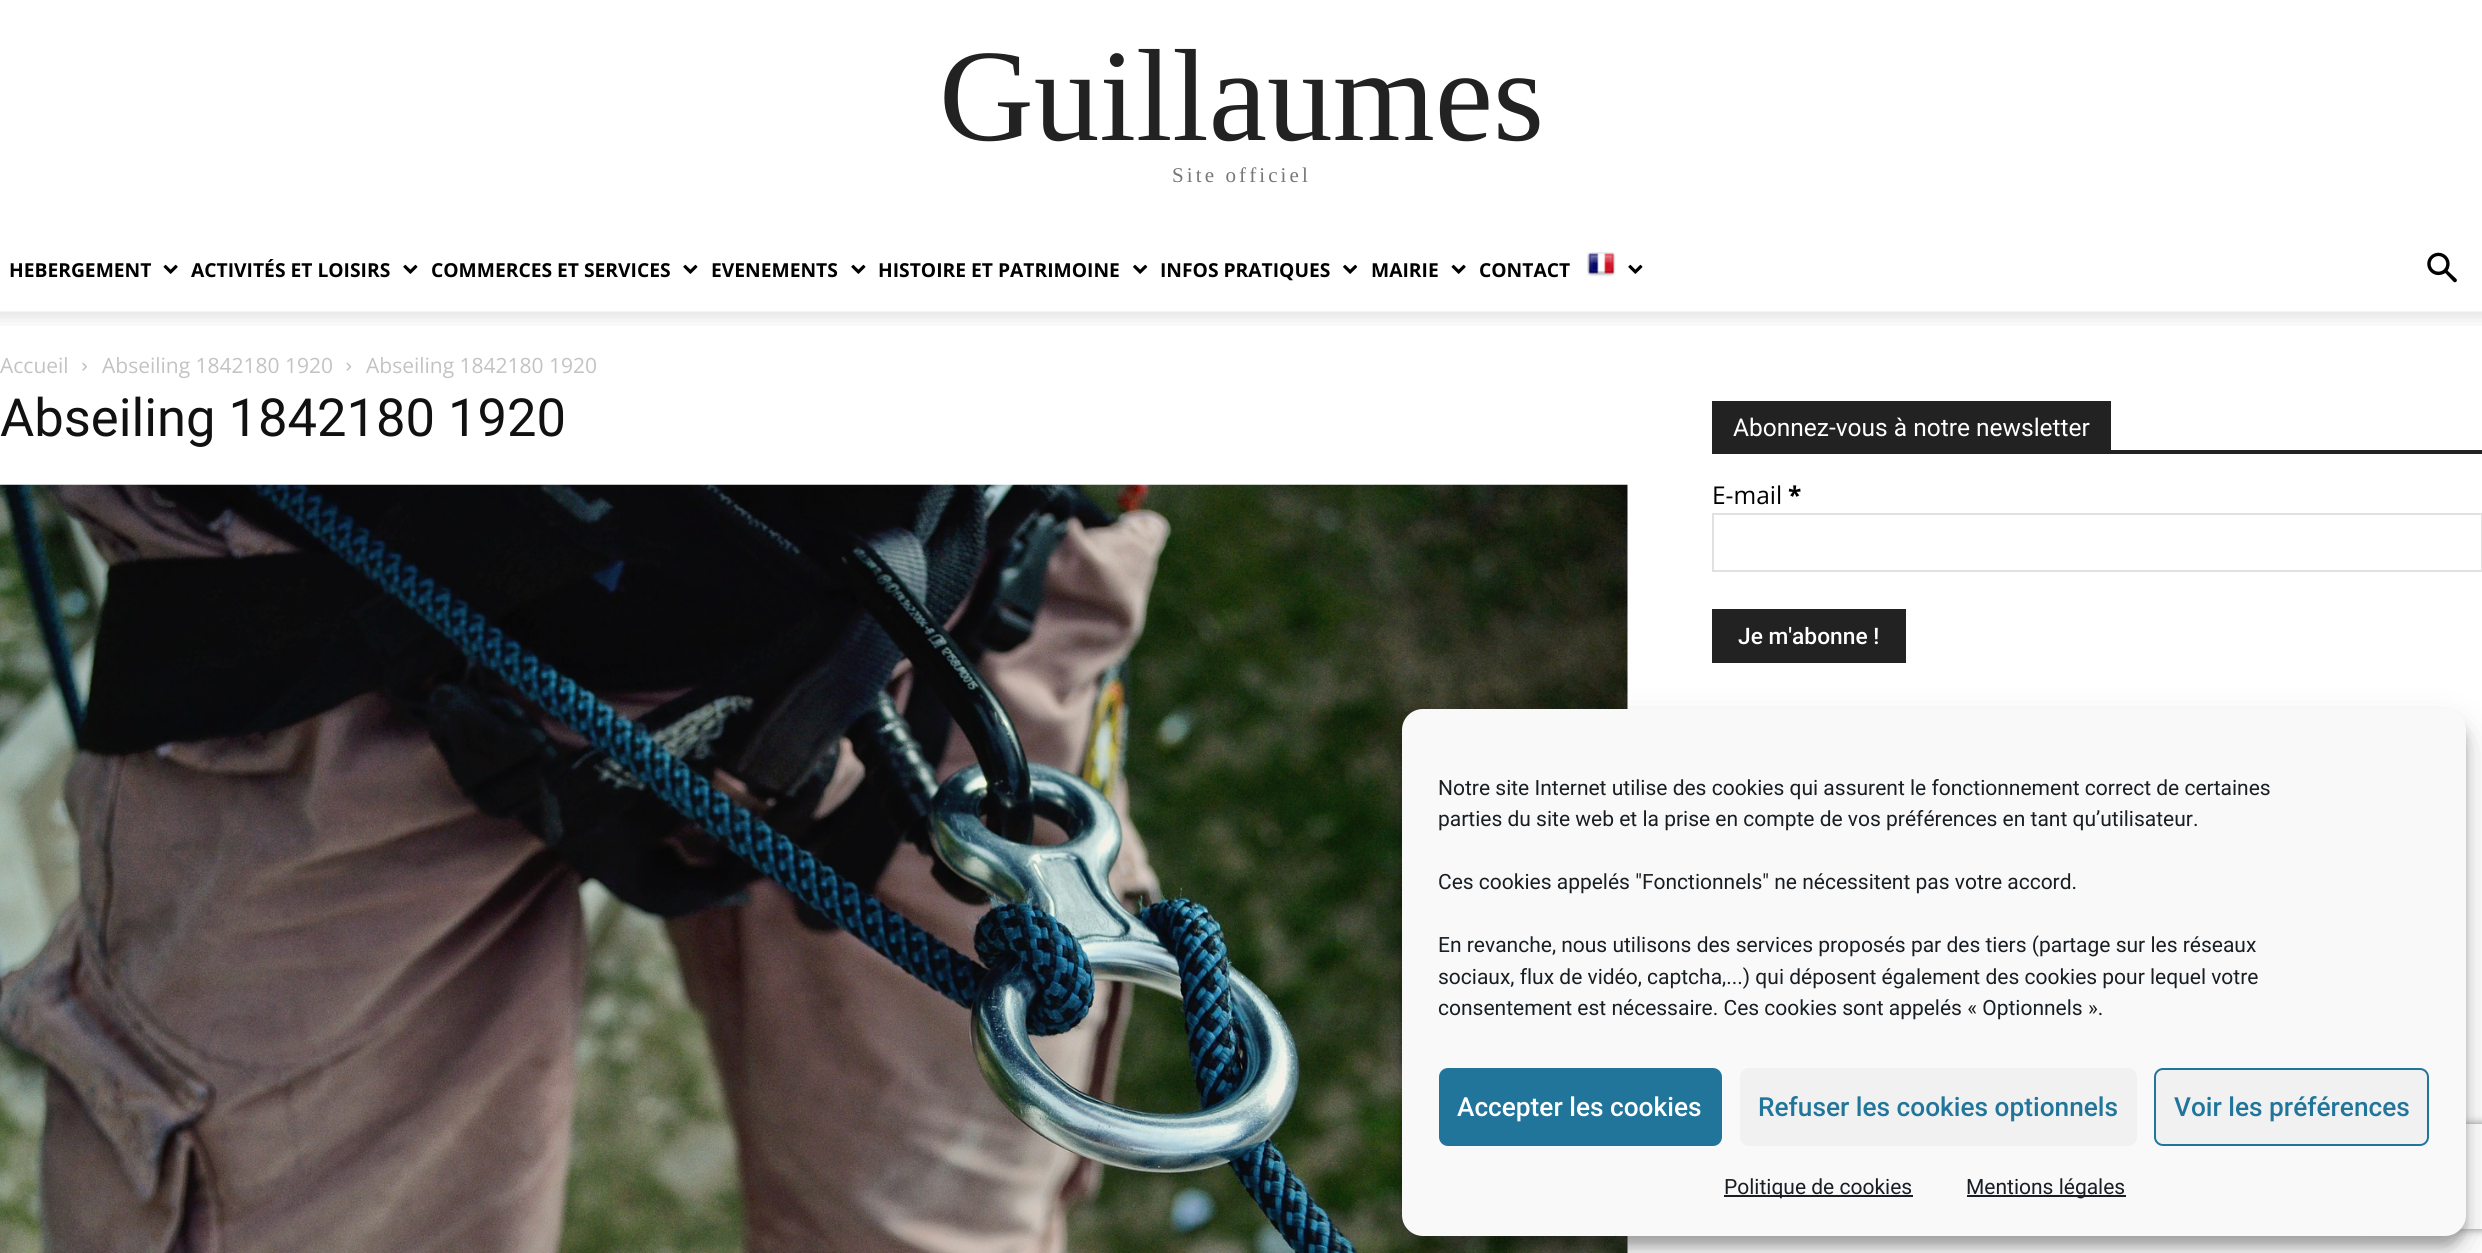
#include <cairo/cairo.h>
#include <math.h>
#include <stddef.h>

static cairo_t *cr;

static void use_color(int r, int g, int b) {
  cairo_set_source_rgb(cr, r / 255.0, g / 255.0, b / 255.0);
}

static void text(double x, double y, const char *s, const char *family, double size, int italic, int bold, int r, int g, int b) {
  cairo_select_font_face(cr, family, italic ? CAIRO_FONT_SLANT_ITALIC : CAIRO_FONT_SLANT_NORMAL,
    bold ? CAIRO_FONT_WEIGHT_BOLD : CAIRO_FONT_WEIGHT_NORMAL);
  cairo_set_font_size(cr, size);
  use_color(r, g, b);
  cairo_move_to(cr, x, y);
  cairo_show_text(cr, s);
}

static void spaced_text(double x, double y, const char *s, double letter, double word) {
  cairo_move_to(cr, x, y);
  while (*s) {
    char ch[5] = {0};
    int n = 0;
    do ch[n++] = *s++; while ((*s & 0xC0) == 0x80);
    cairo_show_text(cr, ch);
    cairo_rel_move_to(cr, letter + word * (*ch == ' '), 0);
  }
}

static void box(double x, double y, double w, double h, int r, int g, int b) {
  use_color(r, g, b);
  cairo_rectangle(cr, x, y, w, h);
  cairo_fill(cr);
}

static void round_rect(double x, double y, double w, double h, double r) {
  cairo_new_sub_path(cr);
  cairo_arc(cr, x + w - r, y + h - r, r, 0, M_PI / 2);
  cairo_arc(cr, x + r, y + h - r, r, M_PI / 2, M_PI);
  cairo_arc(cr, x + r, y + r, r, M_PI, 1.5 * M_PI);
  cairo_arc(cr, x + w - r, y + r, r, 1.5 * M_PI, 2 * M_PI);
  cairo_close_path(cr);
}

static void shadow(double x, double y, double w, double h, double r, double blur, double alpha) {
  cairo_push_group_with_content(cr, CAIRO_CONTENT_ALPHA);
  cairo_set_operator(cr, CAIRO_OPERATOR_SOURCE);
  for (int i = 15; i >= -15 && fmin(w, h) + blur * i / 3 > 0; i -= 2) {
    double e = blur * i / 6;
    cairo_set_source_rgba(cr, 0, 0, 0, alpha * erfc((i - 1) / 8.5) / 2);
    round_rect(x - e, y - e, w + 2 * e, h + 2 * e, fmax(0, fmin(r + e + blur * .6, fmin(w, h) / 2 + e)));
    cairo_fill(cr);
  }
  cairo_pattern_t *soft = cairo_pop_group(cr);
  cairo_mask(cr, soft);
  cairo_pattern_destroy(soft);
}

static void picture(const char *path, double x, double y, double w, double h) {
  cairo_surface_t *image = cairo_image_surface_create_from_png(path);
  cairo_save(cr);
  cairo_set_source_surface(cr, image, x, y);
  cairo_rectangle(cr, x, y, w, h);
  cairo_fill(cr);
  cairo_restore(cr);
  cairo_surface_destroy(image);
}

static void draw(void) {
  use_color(255, 255, 255);
  cairo_paint(cr);
  picture("img_01.png", 163, 264, 15, 10);
  picture("img_02.png", 403, 264, 15, 10);
  picture("img_02.png", 683, 264, 15, 10);
  picture("img_02.png", 851, 264, 15, 10);
  picture("img_03.png", 1133, 264, 15, 10);
  picture("img_03.png", 1343, 264, 15, 10);
  picture("img_01.png", 1451, 264, 15, 10);
  picture("img_04.png", 1587, 252, 29, 25);
  picture("img_02.png", 1628, 264, 15, 10);
  picture("img_05.png", 2427, 252, 30, 31);
  picture("img_06.png", 0, 311, 2482, 15);
  picture("img_07.png", 82, 362, 5, 9);
  picture("img_08.png", 346, 362, 6, 9);
  picture("img_09.png", 0, 484, 1628, 769);
  box(1712, 450, 770, 4, 34, 34, 34);
  box(1712, 401, 399, 49, 34, 34, 34);
  cairo_rectangle(cr, 1713, 514, 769, 57);
  use_color(225, 225, 225);
  cairo_stroke(cr);
  box(1712, 609, 194, 54, 34, 34, 34);
  use_color(0, 0, 0);
  shadow(1402, 719, 1064, 527, 21, 5, 0.23);
  shadow(1402, 726, 1064, 527, 21, 17.5, 0.19);
  cairo_save(cr);
  cairo_set_fill_rule(cr, CAIRO_FILL_RULE_EVEN_ODD);
  cairo_new_path(cr);
  cairo_move_to(cr, 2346, 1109);
  cairo_line_to(cr, 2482, 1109);
  cairo_line_to(cr, 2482, 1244);
  cairo_line_to(cr, 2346, 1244);
  cairo_close_path(cr);
  cairo_move_to(cr, 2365, 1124);
  cairo_line_to(cr, 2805, 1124);
  cairo_curve_to(cr, 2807, 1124, 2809, 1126, 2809, 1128);
  cairo_line_to(cr, 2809, 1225);
  cairo_curve_to(cr, 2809, 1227, 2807, 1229, 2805, 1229);
  cairo_line_to(cr, 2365, 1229);
  cairo_curve_to(cr, 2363, 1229, 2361, 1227, 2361, 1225);
  cairo_line_to(cr, 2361, 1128);
  cairo_curve_to(cr, 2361, 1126, 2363, 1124, 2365, 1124);
  cairo_close_path(cr);
  cairo_clip(cr);
  use_color(128, 128, 128);
  shadow(2361, 1124, 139, 105, 4, 4.5, 1);
  cairo_restore(cr);
  use_color(249, 249, 249);
  round_rect(1403, 710, 1062, 525, 20);
  cairo_fill_preserve(cr);
  cairo_stroke(cr);
  use_color(33, 117, 155);
  round_rect(1440, 1069, 281, 76, 8);
  cairo_fill_preserve(cr);
  cairo_stroke(cr);
  use_color(241, 241, 241);
  round_rect(1740, 1068, 397, 78, 9);
  cairo_fill(cr);
  round_rect(2155, 1069, 273, 76, 8);
  cairo_fill_preserve(cr);
  use_color(33, 117, 155);
  cairo_stroke(cr);
  box(1724, 1195, 189, 2, 25, 30, 35);
  box(1967, 1195, 159, 2, 25, 30, 35);
  text(939, 140, "Guillaumes", "Liberation Serif", 131.25, 0, 0, 34, 34, 34);
  cairo_set_font_size(cr, 21);
  use_color(119, 119, 119);
  spaced_text(1172, 182, "Site officiel", 3.1, 0);
  text(9, 277, "HEBERGEMENT", "Open Sans", 19.25, 0, 1, 0, 0, 0);
  text(191, 277, "ACTIVITÉS ET LOISIRS", "Open Sans", 19.25, 0, 1, 0, 0, 0);
  text(431, 277, "COMMERCES ET SERVICES", "Open Sans", 19.25, 0, 1, 0, 0, 0);
  text(711, 277, "EVENEMENTS", "Open Sans", 19.25, 0, 1, 0, 0, 0);
  text(878, 277, "HISTOIRE ET PATRIMOINE", "Open Sans", 19.25, 0, 1, 0, 0, 0);
  text(1160, 277, "INFOS PRATIQUES", "Open Sans", 19.25, 0, 1, 0, 0, 0);
  text(1371, 277, "MAIRIE", "Open Sans", 19.25, 0, 1, 0, 0, 0);
  text(1479, 277, "CONTACT", "Open Sans", 19.25, 0, 1, 0, 0, 0);
  text(0, 373, "Accueil", "Open Sans", 21, 0, 0, 195, 195, 195);
  text(102, 373, "Abseiling 1842180 1920", "Open Sans", 21, 0, 0, 195, 195, 195);
  text(366, 373, "Abseiling 1842180 1920", "Open Sans", 21, 0, 0, 195, 195, 195);
  text(0, 436, "Abseiling 1842180 1920", "Roboto", 52.5, 0, 0, 17, 17, 17);
  text(1733, 436, "Abonnez-vous à notre newsletter", "Roboto", 24.5, 0, 0, 255, 255, 255);
  text(1712, 504, "E-mail", "Open Sans", 24.5, 0, 0, 0, 0, 0);
  text(1788, 504, "*", "Open Sans", 24.5, 0, 1, 0, 0, 0);
  text(1738, 644, "Je m'abonne !", "Roboto Medium", 22.75, 0, 0, 255, 255, 255);
  text(1438, 795, "Notre site Internet utilise des cookies qui assurent le fonctionnement correct de certaines", "Roboto", 21, 0, 0, 25, 30, 35);
  text(1438, 826, "parties du site web et la prise en compte de vos préférences en tant qu’utilisateur.", "Roboto", 21, 0, 0, 25, 30, 35);
  text(1438, 889, "Ces cookies appelés \"Fonctionnels\" ne nécessitent pas votre accord.", "Roboto", 21, 0, 0, 25, 30, 35);
  text(1438, 952, "En revanche, nous utilisons des services proposés par des tiers (partage sur les réseaux", "Roboto", 21, 0, 0, 25, 30, 35);
  text(1438, 984, "sociaux, flux de vidéo, captcha,...) qui déposent également des cookies pour lequel votre", "Roboto", 21, 0, 0, 25, 30, 35);
  text(1438, 1015, "consentement est nécessaire. Ces cookies sont appelés « Optionnels ».", "Roboto", 21, 0, 0, 25, 30, 35);
  text(1457, 1116, "Accepter les cookies", "Roboto Medium", 26.25, 0, 0, 255, 255, 255);
  text(1758, 1116, "Refuser les cookies optionnels", "Roboto Medium", 26.25, 0, 0, 33, 117, 155);
  text(2174, 1116, "Voir les préférences", "Roboto Medium", 26.25, 0, 0, 33, 117, 155);
  text(1724, 1194, "Politique de cookies", "Roboto", 21, 0, 0, 25, 30, 35);
  text(1966, 1194, "Mentions légales", "Roboto", 21, 0, 0, 25, 30, 35);
}

int main(void) {
  cairo_surface_t *surface = cairo_image_surface_create(CAIRO_FORMAT_RGB24, 2482, 1253);
  cr = cairo_create(surface);
  cairo_font_options_t *options = cairo_font_options_create();
  cairo_font_options_set_hint_metrics(options, CAIRO_HINT_METRICS_OFF);
  cairo_font_options_set_hint_style(options, CAIRO_HINT_STYLE_NONE);
  cairo_set_font_options(cr, options);
  cairo_set_miter_limit(cr, 4);
  draw();
  cairo_surface_write_to_png(surface, "out.png");
  cairo_font_options_destroy(options);
  cairo_destroy(cr);
  cairo_surface_destroy(surface);
  return 0;
}
